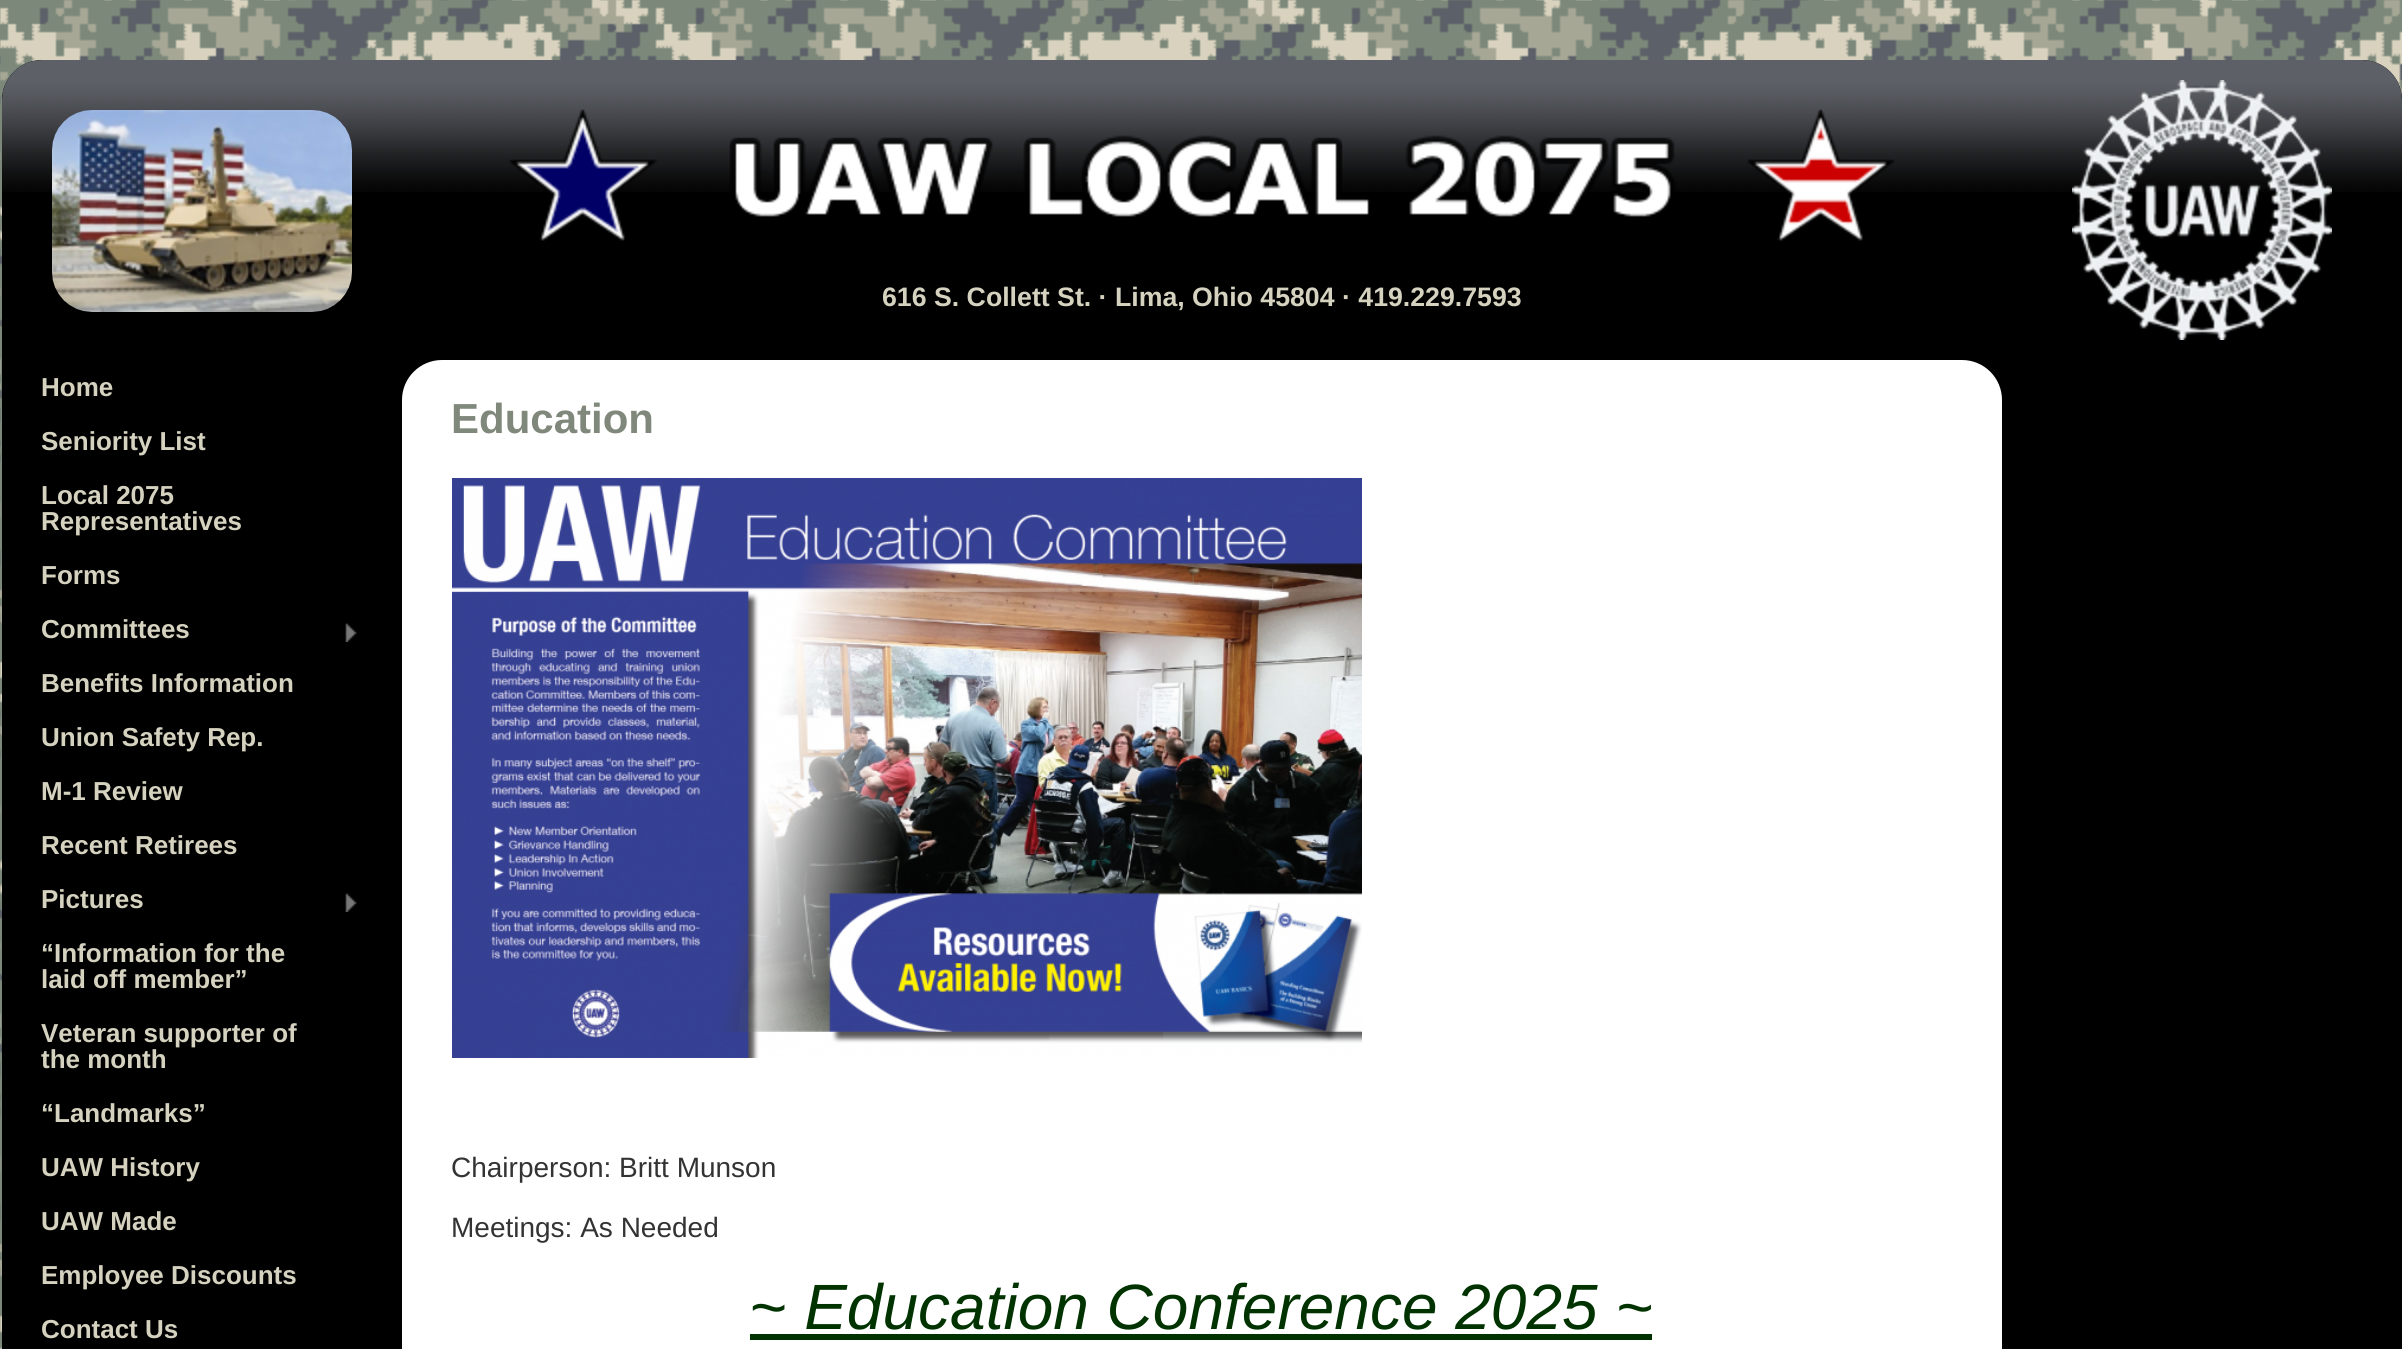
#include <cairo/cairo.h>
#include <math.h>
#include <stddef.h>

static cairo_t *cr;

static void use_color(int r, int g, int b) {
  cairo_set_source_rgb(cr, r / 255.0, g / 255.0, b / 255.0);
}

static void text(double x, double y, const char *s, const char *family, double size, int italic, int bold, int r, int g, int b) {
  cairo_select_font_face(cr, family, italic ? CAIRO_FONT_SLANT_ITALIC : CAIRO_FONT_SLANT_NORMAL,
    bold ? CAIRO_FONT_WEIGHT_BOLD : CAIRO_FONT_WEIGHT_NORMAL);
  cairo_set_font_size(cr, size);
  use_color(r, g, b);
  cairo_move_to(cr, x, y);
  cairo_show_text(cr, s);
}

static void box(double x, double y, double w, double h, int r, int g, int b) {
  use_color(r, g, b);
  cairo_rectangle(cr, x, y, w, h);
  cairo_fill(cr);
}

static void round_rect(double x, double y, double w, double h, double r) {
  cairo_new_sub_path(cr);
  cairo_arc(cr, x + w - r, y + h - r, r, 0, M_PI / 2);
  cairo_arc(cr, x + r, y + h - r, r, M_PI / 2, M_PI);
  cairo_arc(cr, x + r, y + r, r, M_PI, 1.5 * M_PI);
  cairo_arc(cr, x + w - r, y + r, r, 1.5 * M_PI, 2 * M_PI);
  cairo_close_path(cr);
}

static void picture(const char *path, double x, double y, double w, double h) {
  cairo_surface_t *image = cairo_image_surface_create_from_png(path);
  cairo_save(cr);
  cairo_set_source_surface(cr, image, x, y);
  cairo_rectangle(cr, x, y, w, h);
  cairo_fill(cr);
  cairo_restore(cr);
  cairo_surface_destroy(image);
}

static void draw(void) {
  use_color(255, 255, 255);
  cairo_paint(cr);
  picture("img_01.png", 0, 0, 2402, 1349);
  use_color(0, 0, 0);
  cairo_new_path(cr);
  cairo_move_to(cr, 42, 60);
  cairo_line_to(cr, 2362, 60);
  cairo_curve_to(cr, 2384, 60, 2402, 78, 2402, 100);
  cairo_line_to(cr, 2402, 360);
  cairo_line_to(cr, 2, 360);
  cairo_line_to(cr, 2, 100);
  cairo_curve_to(cr, 2, 78, 20, 60, 42, 60);
  cairo_close_path(cr);
  cairo_fill(cr);
  picture("img_02.png", 2, 60, 2400, 132);
  picture("img_03.png", 52, 110, 300, 202);
  picture("img_04.png", 509, 109, 1386, 132);
  picture("img_05.png", 2072, 80, 260, 260);
  box(2, 360, 2400, 989, 0, 0, 0);
  picture("img_06.png", 345, 623, 12, 19);
  picture("img_06.png", 345, 893, 12, 19);
  use_color(255, 255, 255);
  round_rect(402, 360, 1600, 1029, 40);
  cairo_fill(cr);
  picture("img_07.png", 452, 478, 910, 580);
  box(750, 1334, 902, 6, 0, 51, 0);
  text(882, 306, "616 S. Collett St. · Lima, Ohio 45804 · 419.229.7593", "Liberation Sans", 26.7, 0, 1, 214, 210, 192);
  text(41, 396, "Home", "Liberation Sans", 26, 0, 1, 214, 210, 192);
  text(41, 450, "Seniority List", "Liberation Sans", 26, 0, 1, 214, 210, 192);
  text(41, 504, "Local 2075", "Liberation Sans", 26, 0, 1, 214, 210, 192);
  text(41, 530, "Representatives", "Liberation Sans", 26, 0, 1, 214, 210, 192);
  text(41, 584, "Forms", "Liberation Sans", 26, 0, 1, 214, 210, 192);
  text(41, 638, "Committees", "Liberation Sans", 26, 0, 1, 214, 210, 192);
  text(41, 692, "Benefits Information", "Liberation Sans", 26, 0, 1, 214, 210, 192);
  text(41, 746, "Union Safety Rep.", "Liberation Sans", 26, 0, 1, 214, 210, 192);
  text(41, 800, "M-1 Review", "Liberation Sans", 26, 0, 1, 214, 210, 192);
  text(41, 854, "Recent Retirees", "Liberation Sans", 26, 0, 1, 214, 210, 192);
  text(41, 908, "Pictures", "Liberation Sans", 26, 0, 1, 214, 210, 192);
  text(41, 962, "“Information for the", "Liberation Sans", 26, 0, 1, 214, 210, 192);
  text(41, 988, "laid off member”", "Liberation Sans", 26, 0, 1, 214, 210, 192);
  text(41, 1042, "Veteran supporter of", "Liberation Sans", 26, 0, 1, 214, 210, 192);
  text(41, 1068, "the month", "Liberation Sans", 26, 0, 1, 214, 210, 192);
  text(41, 1122, "“Landmarks”", "Liberation Sans", 26, 0, 1, 214, 210, 192);
  text(41, 1176, "UAW History", "Liberation Sans", 26, 0, 1, 214, 210, 192);
  text(41, 1230, "UAW Made", "Liberation Sans", 26, 0, 1, 214, 210, 192);
  text(41, 1284, "Employee Discounts", "Liberation Sans", 26, 0, 1, 214, 210, 192);
  text(41, 1338, "Contact Us", "Liberation Sans", 26, 0, 1, 214, 210, 192);
  text(451, 433, "Education", "Liberation Sans", 42, 0, 1, 128, 136, 123);
  text(451, 1177, "Chairperson: Britt Munson", "Liberation Sans", 28, 0, 0, 51, 51, 51);
  text(451, 1237, "Meetings: As Needed", "Liberation Sans", 28, 0, 0, 51, 51, 51);
  text(749, 1329, "~ Education Conference 2025 ~", "Liberation Sans", 64, 1, 0, 0, 51, 0);
}

int main(void) {
  cairo_surface_t *surface = cairo_image_surface_create(CAIRO_FORMAT_RGB24, 2402, 1349);
  cr = cairo_create(surface);
  cairo_font_options_t *options = cairo_font_options_create();
  cairo_font_options_set_hint_metrics(options, CAIRO_HINT_METRICS_OFF);
  cairo_font_options_set_hint_style(options, CAIRO_HINT_STYLE_NONE);
  cairo_set_font_options(cr, options);
  cairo_set_miter_limit(cr, 4);
  draw();
  cairo_surface_write_to_png(surface, "out.png");
  cairo_font_options_destroy(options);
  cairo_destroy(cr);
  cairo_surface_destroy(surface);
  return 0;
}
